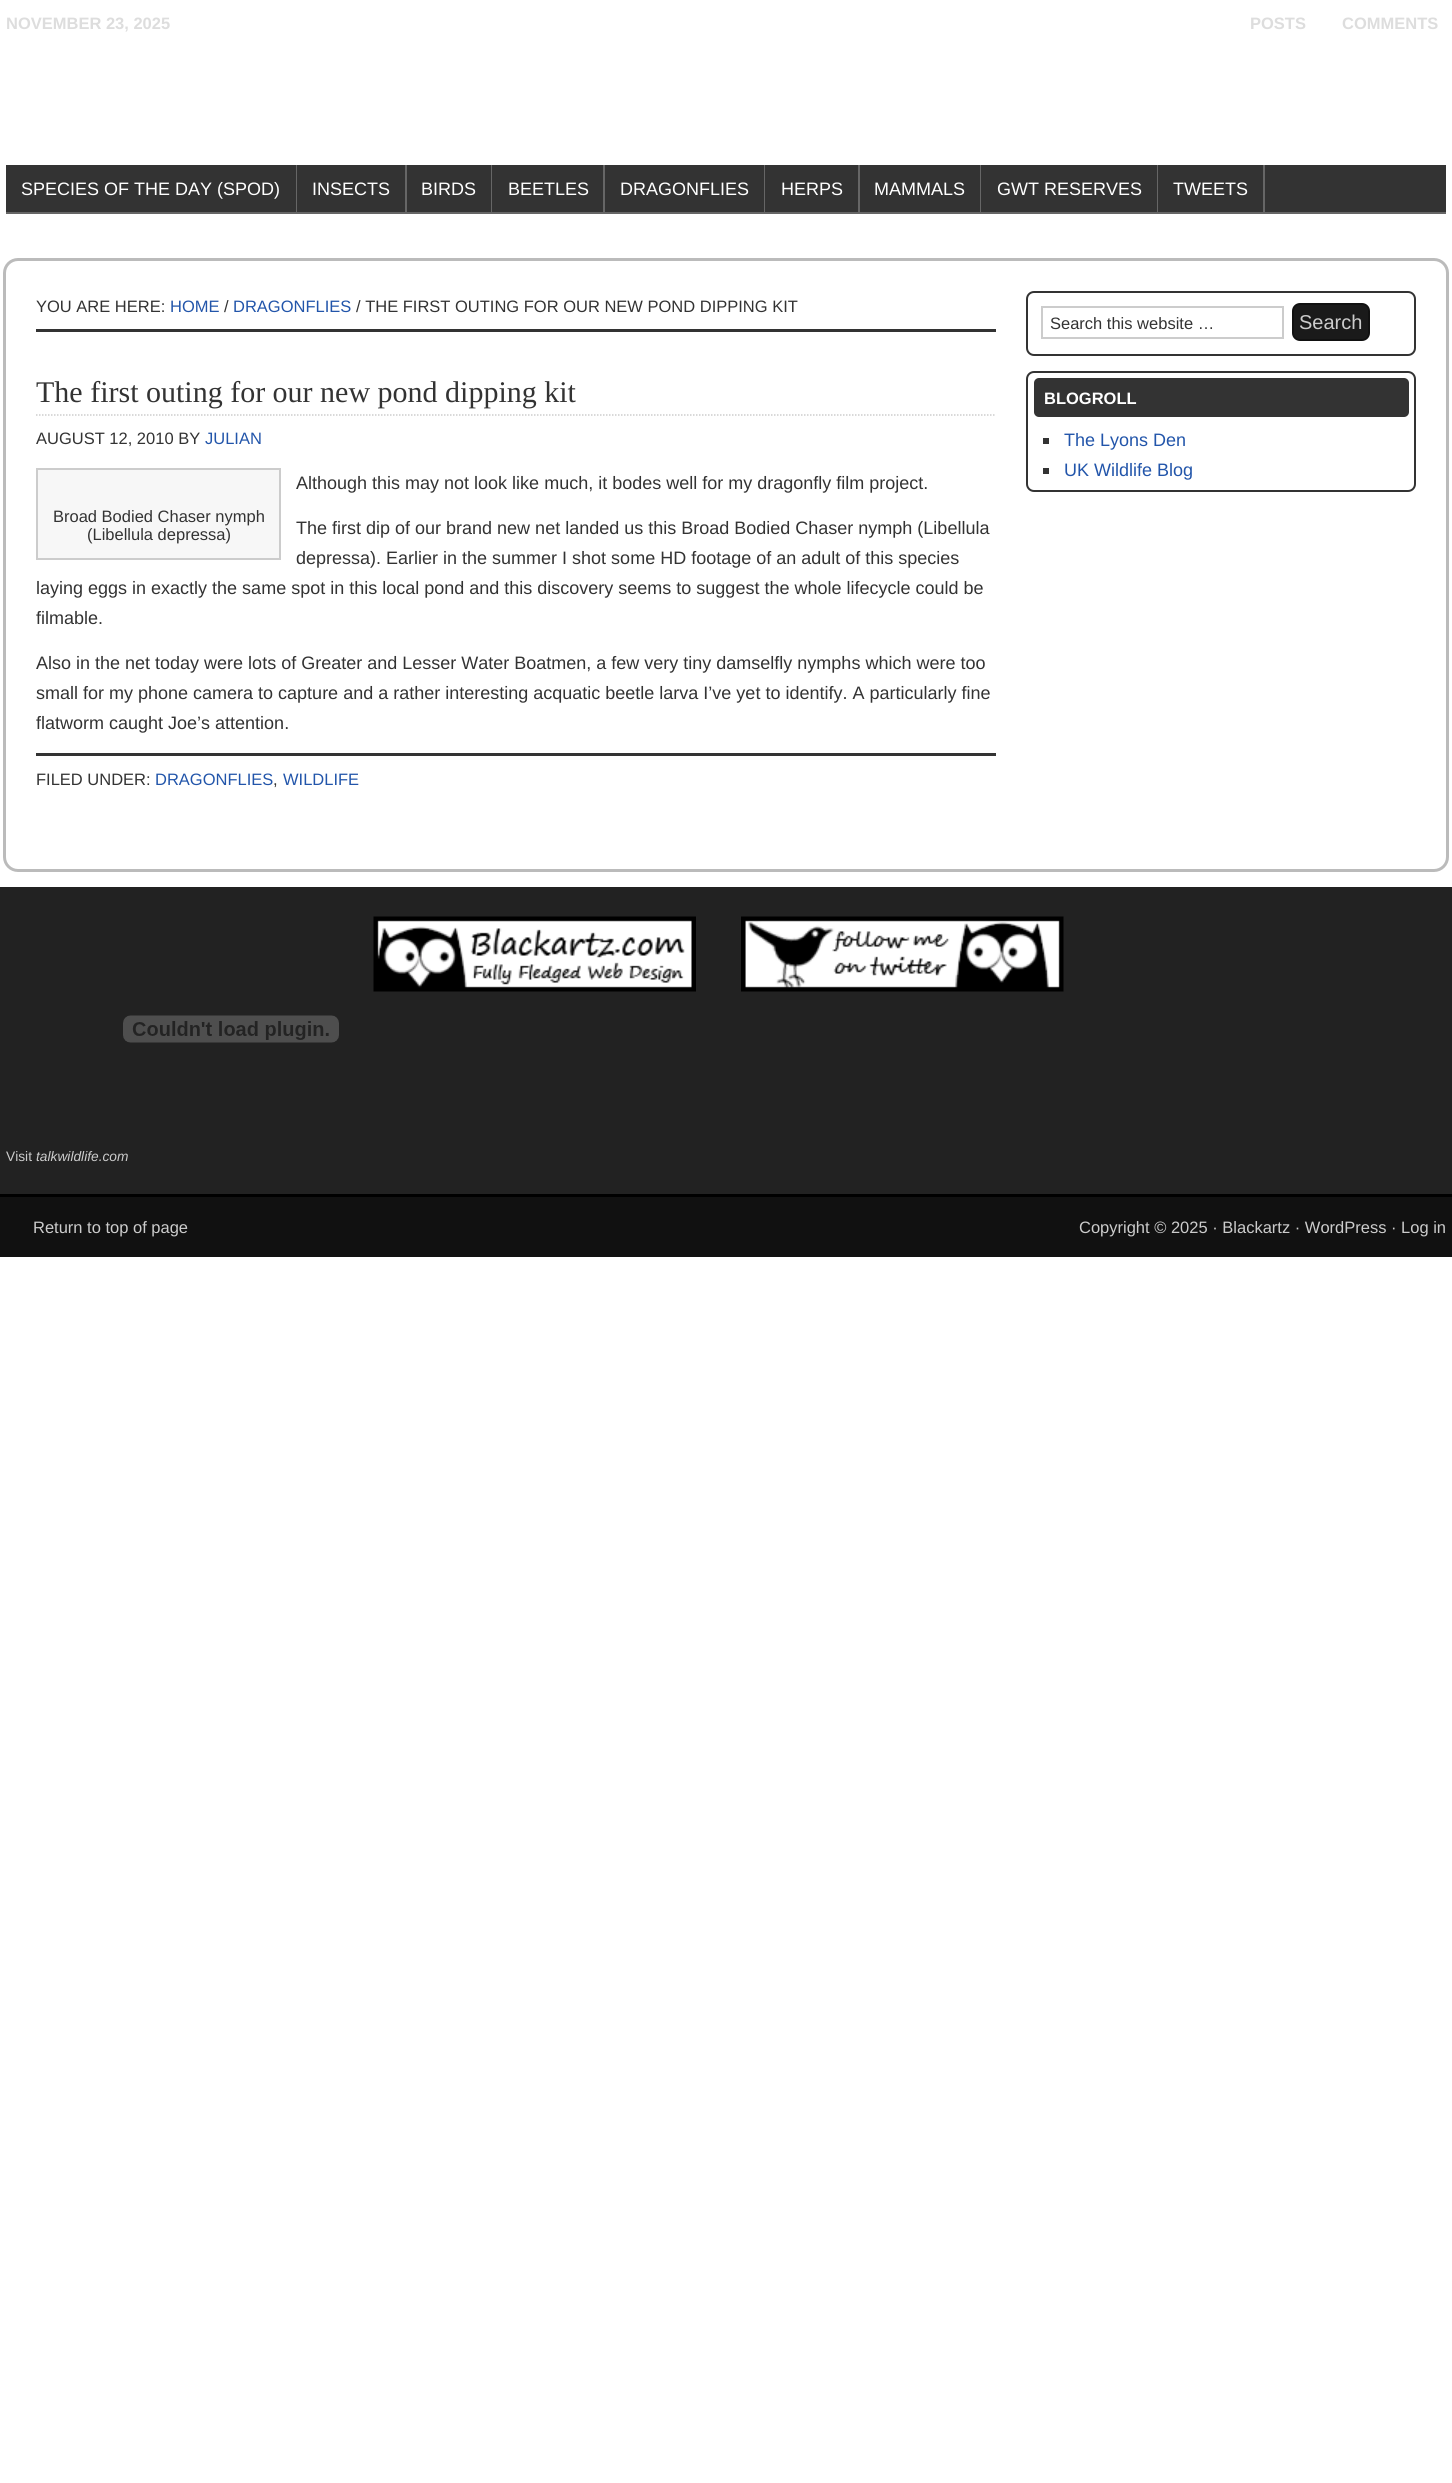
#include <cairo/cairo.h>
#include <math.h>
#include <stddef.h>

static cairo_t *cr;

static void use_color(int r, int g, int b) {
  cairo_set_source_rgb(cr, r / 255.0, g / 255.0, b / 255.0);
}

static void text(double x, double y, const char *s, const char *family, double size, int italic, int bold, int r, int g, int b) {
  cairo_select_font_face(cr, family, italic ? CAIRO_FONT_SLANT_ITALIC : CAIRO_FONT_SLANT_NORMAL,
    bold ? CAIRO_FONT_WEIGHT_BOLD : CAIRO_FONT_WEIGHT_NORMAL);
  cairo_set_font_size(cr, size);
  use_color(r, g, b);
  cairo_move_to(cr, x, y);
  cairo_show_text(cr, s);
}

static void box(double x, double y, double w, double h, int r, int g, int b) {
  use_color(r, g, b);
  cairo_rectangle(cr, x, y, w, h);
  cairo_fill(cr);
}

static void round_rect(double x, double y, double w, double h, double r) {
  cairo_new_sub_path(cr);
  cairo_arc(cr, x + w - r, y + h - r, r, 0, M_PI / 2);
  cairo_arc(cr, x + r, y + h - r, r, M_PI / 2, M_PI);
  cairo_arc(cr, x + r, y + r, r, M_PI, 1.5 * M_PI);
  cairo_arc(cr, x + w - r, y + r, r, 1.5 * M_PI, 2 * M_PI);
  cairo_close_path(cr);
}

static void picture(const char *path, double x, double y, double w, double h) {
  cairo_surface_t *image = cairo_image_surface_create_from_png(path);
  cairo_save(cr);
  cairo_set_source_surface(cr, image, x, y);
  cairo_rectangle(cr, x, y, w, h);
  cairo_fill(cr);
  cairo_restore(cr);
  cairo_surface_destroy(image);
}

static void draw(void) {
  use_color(255, 255, 255);
  cairo_paint(cr);
  box(6, 165, 1440, 47, 51, 51, 51);
  box(6, 212, 1440, 2, 102, 102, 102);
  box(296, 165, 1, 47, 102, 102, 102);
  box(405, 165, 2, 47, 102, 102, 102);
  box(491, 165, 1, 47, 102, 102, 102);
  box(603, 165, 2, 47, 102, 102, 102);
  box(764, 165, 1, 47, 102, 102, 102);
  box(858, 165, 2, 47, 102, 102, 102);
  box(980, 165, 1, 47, 102, 102, 102);
  box(1157, 165, 1, 47, 102, 102, 102);
  box(1263, 165, 2, 47, 102, 102, 102);
  round_rect(4.5, 259.5, 1443, 611, 13.5);
  use_color(187, 187, 187);
  cairo_set_line_width(cr, 3);
  cairo_stroke(cr);
  box(36, 329, 960, 3, 51, 51, 51);
  cairo_new_path(cr);
  cairo_move_to(cr, 36, 415);
  cairo_line_to(cr, 996, 415);
  use_color(204, 204, 204);
  cairo_set_line_width(cr, 1.5);
  cairo_set_dash(cr, (double[]){1.5, 1.5}, 2, 0);
  cairo_stroke(cr);
  use_color(247, 247, 247);
  cairo_rectangle(cr, 37, 469, 243, 90);
  cairo_fill_preserve(cr);
  use_color(204, 204, 204);
  cairo_set_line_width(cr, 2);
  cairo_set_dash(cr, NULL, 0, 0);
  cairo_stroke(cr);
  box(36, 753, 960, 3, 51, 51, 51);
  round_rect(1027, 292, 388, 63, 7);
  cairo_stroke(cr);
  cairo_rectangle(cr, 1042, 307, 241, 31);
  use_color(204, 204, 204);
  cairo_stroke(cr);
  use_color(26, 26, 26);
  round_rect(1293, 304, 76, 36, 7);
  cairo_fill_preserve(cr);
  use_color(17, 17, 17);
  cairo_stroke(cr);
  round_rect(1027, 372, 388, 119, 7);
  use_color(51, 51, 51);
  cairo_stroke(cr);
  round_rect(1034, 378, 375, 39, 5);
  cairo_fill(cr);
  box(1043, 438, 6, 6, 51, 51, 51);
  box(1043, 468, 6, 6, 51, 51, 51);
  box(0, 887, 1452, 307, 34, 34, 34);
  picture("img_01.png", 373, 916, 323, 76);
  picture("img_02.png", 741, 916, 323, 76);
  picture("img_03.png", 123, 1015, 216, 28);
  box(0, 1197, 1452, 60, 17, 17, 17);
  box(0, 1194, 1452, 3, 0, 0, 0);
  text(6, 29, "NOVEMBER 23, 2025", "Liberation Sans", 16.5, 0, 1, 221, 221, 221);
  text(1250, 29, "POSTS", "Liberation Sans", 16.5, 0, 1, 221, 221, 221);
  text(1342, 29, "COMMENTS", "Liberation Sans", 16.5, 0, 1, 221, 221, 221);
  text(21, 195, "SPECIES OF THE DAY (SPOD)", "Liberation Sans", 18, 0, 0, 255, 255, 255);
  text(312, 195, "INSECTS", "Liberation Sans", 18, 0, 0, 255, 255, 255);
  text(421, 195, "BIRDS", "Liberation Sans", 18, 0, 0, 255, 255, 255);
  text(508, 195, "BEETLES", "Liberation Sans", 18, 0, 0, 255, 255, 255);
  text(620, 195, "DRAGONFLIES", "Liberation Sans", 18, 0, 0, 255, 255, 255);
  text(781, 195, "HERPS", "Liberation Sans", 18, 0, 0, 255, 255, 255);
  text(874, 195, "MAMMALS", "Liberation Sans", 18, 0, 0, 255, 255, 255);
  text(997, 195, "GWT RESERVES", "Liberation Sans", 18, 0, 0, 255, 255, 255);
  text(1173, 195, "TWEETS", "Liberation Sans", 18, 0, 0, 255, 255, 255);
  text(36, 312, "YOU ARE HERE:", "Liberation Sans", 16.5, 0, 0, 51, 51, 51);
  text(170, 312, "HOME", "Liberation Sans", 16.5, 0, 0, 34, 85, 170);
  text(224, 312, "/", "Liberation Sans", 16.5, 0, 0, 51, 51, 51);
  text(233, 312, "DRAGONFLIES", "Liberation Sans", 16.5, 0, 0, 34, 85, 170);
  text(356, 312, "/ THE FIRST OUTING FOR OUR NEW POND DIPPING KIT", "Liberation Sans", 16.5, 0, 0, 51, 51, 51);
  text(36, 402, "The first outing for our new pond dipping kit", "Liberation Serif", 30, 0, 0, 51, 51, 51);
  text(36, 444, "AUGUST 12, 2010 BY", "Liberation Sans", 16.5, 0, 0, 51, 51, 51);
  text(205, 444, "JULIAN", "Liberation Sans", 16.5, 0, 0, 34, 85, 170);
  text(296, 489, "Although this may not look like much, it bodes well for my dragonfly film project.", "Liberation Sans", 18, 0, 0, 51, 51, 51);
  text(53, 522, "Broad Bodied Chaser nymph", "Liberation Sans", 16.5, 0, 0, 51, 51, 51);
  text(87, 540, "(Libellula depressa)", "Liberation Sans", 16.5, 0, 0, 51, 51, 51);
  text(296, 534, "The first dip of our brand new net landed us this Broad Bodied Chaser nymph (Libellula", "Liberation Sans", 18, 0, 0, 51, 51, 51);
  text(296, 564, "depressa). Earlier in the summer I shot some HD footage of an adult of this species", "Liberation Sans", 18, 0, 0, 51, 51, 51);
  text(36, 594, "laying eggs in exactly the same spot in this local pond and this discovery seems to suggest the whole lifecycle could be", "Liberation Sans", 18, 0, 0, 51, 51, 51);
  text(36, 624, "filmable.", "Liberation Sans", 18, 0, 0, 51, 51, 51);
  text(36, 669, "Also in the net today were lots of Greater and Lesser Water Boatmen, a few very tiny damselfly nymphs which were too", "Liberation Sans", 18, 0, 0, 51, 51, 51);
  text(36, 699, "small for my phone camera to capture and a rather interesting acquatic beetle larva I’ve yet to identify. A particularly fine", "Liberation Sans", 18, 0, 0, 51, 51, 51);
  text(36, 729, "flatworm caught Joe’s attention.", "Liberation Sans", 18, 0, 0, 51, 51, 51);
  text(36, 785, "FILED UNDER:", "Liberation Sans", 16.5, 0, 0, 51, 51, 51);
  text(155, 785, "DRAGONFLIES", "Liberation Sans", 16.5, 0, 0, 34, 85, 170);
  text(283, 785, "WILDLIFE", "Liberation Sans", 16.5, 0, 0, 34, 85, 170);
  text(273, 785, ",", "Liberation Sans", 16.5, 0, 0, 51, 51, 51);
  text(1050, 329, "Search this website …", "Liberation Sans", 16.5, 0, 0, 51, 51, 51);
  text(1299, 329, "Search", "Liberation Sans", 20, 0, 0, 204, 204, 204);
  text(1044, 404, "BLOGROLL", "Liberation Sans", 16.5, 0, 1, 255, 255, 255);
  text(1064, 446, "The Lyons Den", "Liberation Sans", 18, 0, 0, 34, 85, 170);
  text(1064, 476, "UK Wildlife Blog", "Liberation Sans", 18, 0, 0, 34, 85, 170);
  text(6, 1161, "Visit", "Liberation Sans", 13.75, 0, 0, 204, 204, 204);
  text(36, 1161, "talkwildlife.com", "Liberation Sans", 13.75, 1, 0, 204, 204, 204);
  text(33, 1233, "Return to top of page", "Liberation Sans", 16.5, 0, 0, 204, 204, 204);
  text(1079, 1233, "Copyright © 2025 · Blackartz · WordPress · Log in", "Liberation Sans", 16.5, 0, 0, 204, 204, 204);
}

int main(void) {
  cairo_surface_t *surface = cairo_image_surface_create(CAIRO_FORMAT_RGB24, 1452, 2483);
  cr = cairo_create(surface);
  cairo_font_options_t *options = cairo_font_options_create();
  cairo_font_options_set_hint_metrics(options, CAIRO_HINT_METRICS_OFF);
  cairo_font_options_set_hint_style(options, CAIRO_HINT_STYLE_NONE);
  cairo_set_font_options(cr, options);
  cairo_set_miter_limit(cr, 4);
  draw();
  cairo_surface_write_to_png(surface, "out.png");
  cairo_font_options_destroy(options);
  cairo_destroy(cr);
  cairo_surface_destroy(surface);
  return 0;
}
